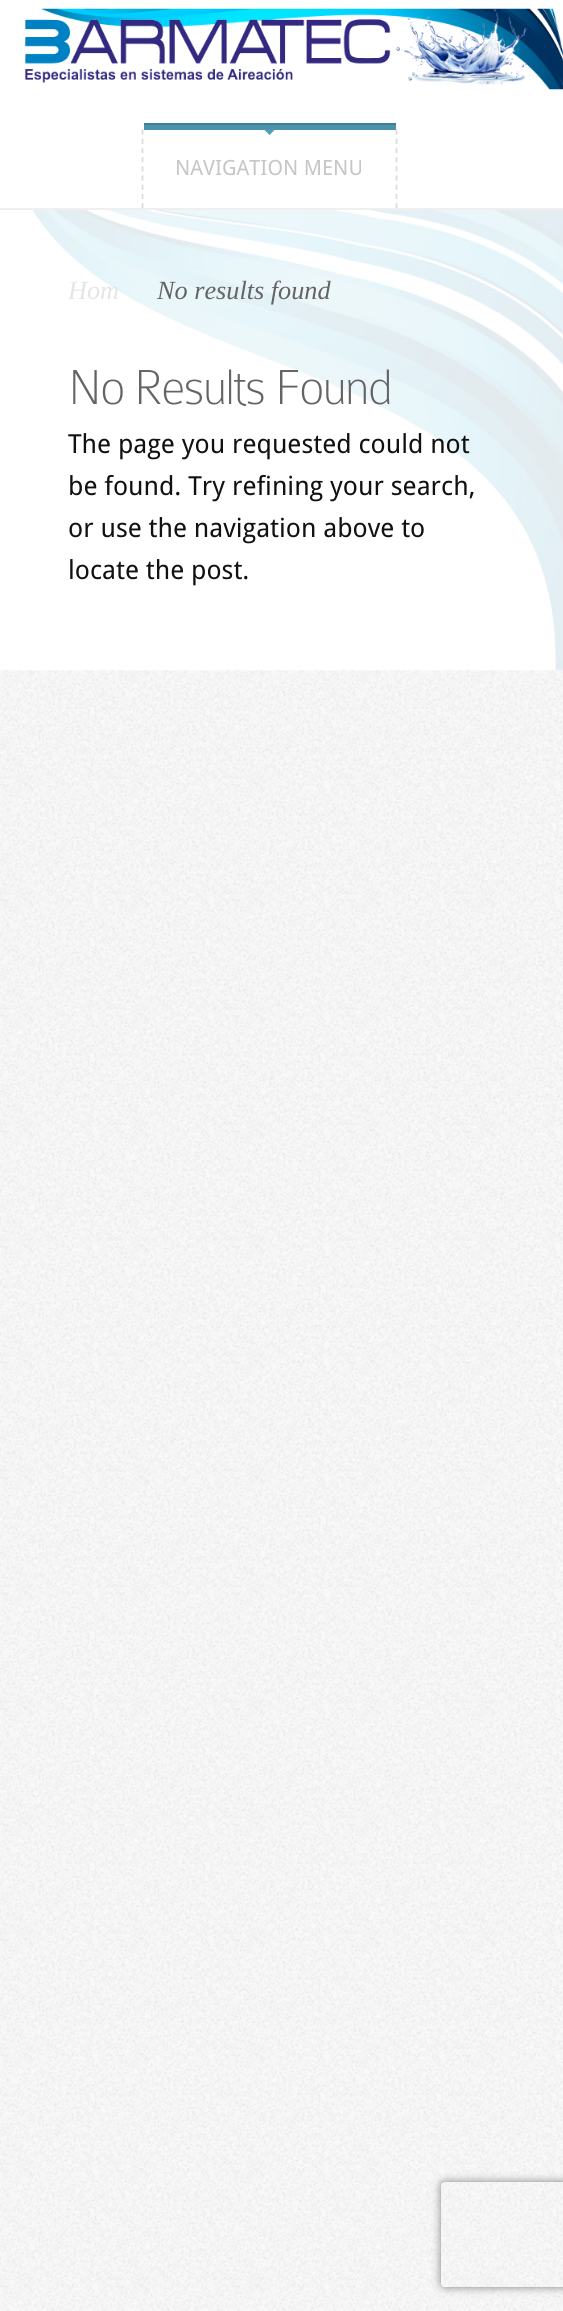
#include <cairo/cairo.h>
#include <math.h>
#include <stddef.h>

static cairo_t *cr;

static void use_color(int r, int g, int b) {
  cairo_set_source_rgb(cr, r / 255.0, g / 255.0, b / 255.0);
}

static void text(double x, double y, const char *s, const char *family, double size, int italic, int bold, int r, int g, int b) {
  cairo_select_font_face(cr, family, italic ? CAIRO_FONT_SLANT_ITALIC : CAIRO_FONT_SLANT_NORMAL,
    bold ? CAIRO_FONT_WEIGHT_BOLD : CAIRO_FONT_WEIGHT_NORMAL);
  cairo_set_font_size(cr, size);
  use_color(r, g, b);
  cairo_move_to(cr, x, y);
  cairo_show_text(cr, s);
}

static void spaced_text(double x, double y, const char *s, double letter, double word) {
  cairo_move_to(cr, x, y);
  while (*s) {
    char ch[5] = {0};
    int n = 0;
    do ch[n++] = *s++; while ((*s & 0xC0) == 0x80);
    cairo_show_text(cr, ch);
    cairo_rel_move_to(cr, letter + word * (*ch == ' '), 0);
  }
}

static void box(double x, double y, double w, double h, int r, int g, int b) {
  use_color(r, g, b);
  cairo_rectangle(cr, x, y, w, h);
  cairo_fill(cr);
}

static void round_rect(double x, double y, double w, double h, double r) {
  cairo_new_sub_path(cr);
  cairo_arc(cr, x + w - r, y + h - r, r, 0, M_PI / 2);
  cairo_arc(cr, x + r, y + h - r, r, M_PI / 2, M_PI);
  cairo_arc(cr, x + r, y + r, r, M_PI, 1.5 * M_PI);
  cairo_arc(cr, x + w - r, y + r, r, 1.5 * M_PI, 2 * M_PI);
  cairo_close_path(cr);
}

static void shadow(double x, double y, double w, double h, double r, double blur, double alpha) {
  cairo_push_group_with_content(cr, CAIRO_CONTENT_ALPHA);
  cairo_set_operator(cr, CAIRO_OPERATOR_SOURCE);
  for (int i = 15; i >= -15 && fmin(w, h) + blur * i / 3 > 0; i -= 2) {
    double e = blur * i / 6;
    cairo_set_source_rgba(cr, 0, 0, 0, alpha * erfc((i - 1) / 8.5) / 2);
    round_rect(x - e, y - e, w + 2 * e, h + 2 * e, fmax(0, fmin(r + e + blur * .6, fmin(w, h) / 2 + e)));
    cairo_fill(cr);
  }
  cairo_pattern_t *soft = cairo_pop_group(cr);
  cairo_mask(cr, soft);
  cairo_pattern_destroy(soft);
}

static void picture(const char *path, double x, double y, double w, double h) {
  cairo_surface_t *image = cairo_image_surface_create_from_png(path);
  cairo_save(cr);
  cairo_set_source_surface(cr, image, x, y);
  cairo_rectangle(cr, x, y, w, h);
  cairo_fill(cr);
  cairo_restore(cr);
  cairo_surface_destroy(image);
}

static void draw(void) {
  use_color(248, 248, 248);
  cairo_paint(cr);
  picture("img_01.png", 0, 670, 563, 1641);
  picture("img_02.png", 0, 210, 563, 461);
  box(0, 0, 563, 208, 255, 255, 255);
  picture("img_03.png", 25, 8, 538, 82);
  box(0, 208, 563, 2, 239, 239, 239);
  cairo_new_path(cr);
  cairo_move_to(cr, 396.5, 129.5);
  cairo_line_to(cr, 396.5, 208);
  use_color(220, 220, 220);
  cairo_set_line_width(cr, 1.8);
  cairo_set_dash(cr, (double[]){5.25, 3.94}, 2, 0);
  cairo_stroke(cr);
  cairo_new_path(cr);
  cairo_move_to(cr, 142.5, 129.5);
  cairo_line_to(cr, 142.5, 208);
  cairo_stroke(cr);
  box(144, 125, 252, 5, 75, 147, 173);
  box(144, 123, 252, 2, 60, 129, 154);
  use_color(84, 158, 185);
  cairo_new_path(cr);
  cairo_move_to(cr, 264, 129.5);
  cairo_line_to(cr, 275, 129.5);
  cairo_line_to(cr, 269.5, 135);
  cairo_close_path(cr);
  cairo_fill(cr);
  cairo_save(cr);
  cairo_set_fill_rule(cr, CAIRO_FILL_RULE_EVEN_ODD);
  cairo_new_path(cr);
  cairo_move_to(cr, 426, 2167);
  cairo_line_to(cr, 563, 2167);
  cairo_line_to(cr, 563, 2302);
  cairo_line_to(cr, 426, 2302);
  cairo_close_path(cr);
  cairo_move_to(cr, 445, 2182);
  cairo_line_to(cr, 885, 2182);
  cairo_curve_to(cr, 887, 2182, 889, 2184, 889, 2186);
  cairo_line_to(cr, 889, 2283);
  cairo_curve_to(cr, 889, 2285, 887, 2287, 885, 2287);
  cairo_line_to(cr, 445, 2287);
  cairo_curve_to(cr, 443, 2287, 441, 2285, 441, 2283);
  cairo_line_to(cr, 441, 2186);
  cairo_curve_to(cr, 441, 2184, 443, 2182, 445, 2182);
  cairo_close_path(cr);
  cairo_clip(cr);
  use_color(128, 128, 128);
  shadow(441, 2182, 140, 105, 4, 4.5, 1);
  cairo_restore(cr);
  text(175, 175, "NAVIGATION MENU", "Droid Sans", 21, 0, 0, 198, 198, 198);
  text(68, 299, "Hom", "Liberation Serif", 26.25, 1, 0, 229, 229, 229);
  text(157, 299, "No results found", "Liberation Serif", 26.25, 1, 0, 101, 100, 100);
  cairo_select_font_face(cr, "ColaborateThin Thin", CAIRO_FONT_SLANT_NORMAL, CAIRO_FONT_WEIGHT_NORMAL);
  cairo_set_font_size(cr, 52.5);
  spaced_text(68, 404, "No Results Found", -1.75, 0);
  text(68, 453, "The page you requested could not", "Droid Sans", 26.25, 0, 0, 17, 17, 17);
  text(68, 495, "be found. Try refining your search,", "Droid Sans", 26.25, 0, 0, 17, 17, 17);
  text(68, 537, "or use the navigation above to", "Droid Sans", 26.25, 0, 0, 17, 17, 17);
  text(68, 579, "locate the post.", "Droid Sans", 26.25, 0, 0, 17, 17, 17);
}

int main(void) {
  cairo_surface_t *surface = cairo_image_surface_create(CAIRO_FORMAT_RGB24, 563, 2311);
  cr = cairo_create(surface);
  cairo_font_options_t *options = cairo_font_options_create();
  cairo_font_options_set_hint_metrics(options, CAIRO_HINT_METRICS_OFF);
  cairo_font_options_set_hint_style(options, CAIRO_HINT_STYLE_NONE);
  cairo_set_font_options(cr, options);
  cairo_set_miter_limit(cr, 4);
  draw();
  cairo_surface_write_to_png(surface, "out.png");
  cairo_font_options_destroy(options);
  cairo_destroy(cr);
  cairo_surface_destroy(surface);
  return 0;
}
